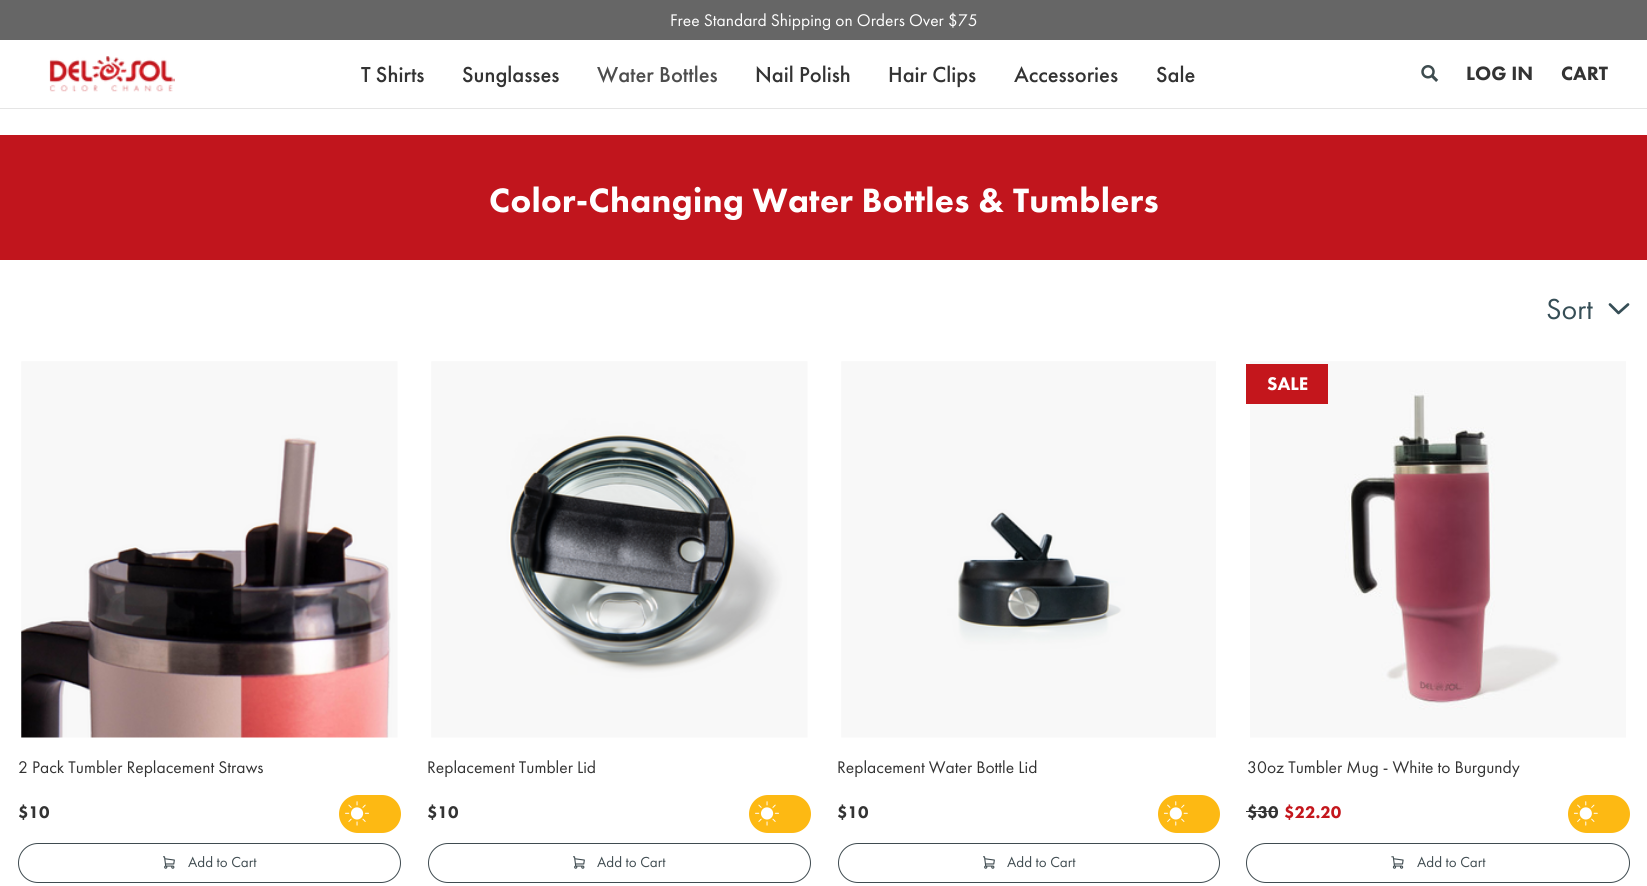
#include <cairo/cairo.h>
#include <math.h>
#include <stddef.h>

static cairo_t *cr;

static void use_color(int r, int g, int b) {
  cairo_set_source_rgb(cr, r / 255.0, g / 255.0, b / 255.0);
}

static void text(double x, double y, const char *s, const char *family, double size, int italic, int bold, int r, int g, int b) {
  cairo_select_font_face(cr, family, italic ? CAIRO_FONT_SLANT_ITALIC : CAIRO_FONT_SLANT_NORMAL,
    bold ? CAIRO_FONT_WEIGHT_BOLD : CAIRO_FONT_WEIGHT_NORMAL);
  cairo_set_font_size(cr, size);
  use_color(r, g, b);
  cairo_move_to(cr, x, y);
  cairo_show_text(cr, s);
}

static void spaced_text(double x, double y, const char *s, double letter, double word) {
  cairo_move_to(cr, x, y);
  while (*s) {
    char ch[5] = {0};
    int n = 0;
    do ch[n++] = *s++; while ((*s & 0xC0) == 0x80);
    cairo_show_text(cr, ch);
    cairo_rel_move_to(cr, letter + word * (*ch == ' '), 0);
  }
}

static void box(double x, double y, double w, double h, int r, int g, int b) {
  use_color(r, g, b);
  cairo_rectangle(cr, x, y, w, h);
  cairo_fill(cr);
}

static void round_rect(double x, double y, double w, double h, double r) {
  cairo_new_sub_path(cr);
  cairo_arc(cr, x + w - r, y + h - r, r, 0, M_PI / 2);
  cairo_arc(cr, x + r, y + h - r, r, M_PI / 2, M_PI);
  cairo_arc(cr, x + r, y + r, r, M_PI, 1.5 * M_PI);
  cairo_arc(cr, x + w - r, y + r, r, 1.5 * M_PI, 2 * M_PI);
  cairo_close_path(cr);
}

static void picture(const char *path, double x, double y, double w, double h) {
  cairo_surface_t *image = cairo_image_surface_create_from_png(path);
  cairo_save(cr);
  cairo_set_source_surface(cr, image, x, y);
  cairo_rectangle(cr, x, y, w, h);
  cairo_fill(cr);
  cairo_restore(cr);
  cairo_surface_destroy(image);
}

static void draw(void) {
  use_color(255, 255, 255);
  cairo_paint(cr);
  box(0, 0, 1647, 40, 102, 102, 102);
  box(0, 108, 1647, 1, 229, 229, 229);
  picture("img_01.png", 49, 56, 126, 36);
  picture("img_02.png", 1421, 65, 18, 17);
  box(0, 135, 1647, 125, 193, 21, 29);
  cairo_new_path(cr);
  cairo_move_to(cr, 1610, 304.5);
  cairo_line_to(cr, 1618.5, 313);
  cairo_line_to(cr, 1628, 304.5);
  use_color(54, 78, 86);
  cairo_set_line_width(cr, 2.7);
  cairo_set_line_cap(cr, CAIRO_LINE_CAP_ROUND);
  cairo_set_line_join(cr, CAIRO_LINE_JOIN_ROUND);
  cairo_stroke(cr);
  picture("img_03.png", 21, 361, 377, 377);
  use_color(253, 185, 19);
  round_rect(339, 795, 62, 38, 19);
  cairo_fill(cr);
  picture("img_04.png", 345, 801, 24, 25);
  round_rect(18.5, 843.5, 382, 39, 19.5);
  use_color(63, 75, 80);
  cairo_set_line_width(cr, 1);
  cairo_set_line_cap(cr, CAIRO_LINE_CAP_BUTT);
  cairo_set_line_join(cr, CAIRO_LINE_JOIN_MITER);
  cairo_stroke(cr);
  picture("img_05.png", 163, 856, 12, 13);
  picture("img_06.png", 431, 361, 377, 377);
  use_color(253, 185, 19);
  round_rect(749, 795, 62, 38, 19);
  cairo_fill(cr);
  picture("img_04.png", 755, 801, 24, 25);
  round_rect(428.5, 843.5, 382, 39, 19.5);
  use_color(63, 75, 80);
  cairo_stroke(cr);
  picture("img_05.png", 573, 856, 12, 13);
  picture("img_07.png", 841, 361, 375, 377);
  use_color(253, 185, 19);
  round_rect(1158, 795, 62, 38, 19);
  cairo_fill(cr);
  picture("img_08.png", 1164, 801, 24, 25);
  round_rect(838.5, 843.5, 381, 39, 19.5);
  use_color(63, 75, 80);
  cairo_stroke(cr);
  picture("img_05.png", 983, 856, 12, 13);
  picture("img_09.png", 1250, 361, 376, 377);
  box(1246, 364, 82, 40, 196, 22, 28);
  box(1246, 811, 32, 1, 51, 51, 51);
  use_color(253, 185, 19);
  round_rect(1568, 795, 62, 38, 19);
  cairo_fill(cr);
  picture("img_08.png", 1574, 801, 24, 25);
  round_rect(1246.5, 843.5, 383, 39, 19.5);
  use_color(63, 75, 80);
  cairo_stroke(cr);
  picture("img_10.png", 1391, 856, 13, 13);
  text(670, 26, "Free Standard Shipping on Orders Over $75", "Futura PT", 17.5, 0, 0, 255, 255, 255);
  text(361, 82, "T Shirts", "Futura PT Medium", 22.5, 0, 0, 51, 51, 51);
  text(462, 82, "Sunglasses", "Futura PT Medium", 22.5, 0, 0, 51, 51, 51);
  text(597, 82, "Water Bottles", "Futura PT Medium", 22.5, 0, 0, 77, 77, 77);
  text(755, 82, "Nail Polish", "Futura PT Medium", 22.5, 0, 0, 51, 51, 51);
  text(888, 82, "Hair Clips", "Futura PT Medium", 22.5, 0, 0, 51, 51, 51);
  text(1014, 82, "Accessories", "Futura PT Medium", 22.5, 0, 0, 51, 51, 51);
  text(1156, 82, "Sale", "Futura PT Medium", 22.5, 0, 0, 51, 51, 51);
  text(1466, 80, "LOG IN", "Futura PT Black", 20, 0, 0, 51, 51, 51);
  text(1561, 80, "CART", "Futura PT Black", 20, 0, 0, 51, 51, 51);
  cairo_set_font_size(cr, 35);
  use_color(255, 255, 255);
  spaced_text(489, 212, "Color-Changing Water Bottles & Tumblers", 0.3, 0);
  text(1546, 319, "Sort", "Futura PT", 30, 0, 0, 54, 78, 86);
  text(18, 773, "2 Pack Tumbler Replacement Straws", "Futura PT", 17.5, 0, 0, 51, 51, 51);
  text(18, 818, "$10", "Futura PT Black", 17.5, 0, 0, 51, 51, 51);
  text(188, 867, "Add to Cart", "Futura PT", 15, 0, 0, 63, 75, 80);
  text(427, 773, "Replacement Tumbler Lid", "Futura PT", 17.5, 0, 0, 51, 51, 51);
  text(427, 818, "$10", "Futura PT Black", 17.5, 0, 0, 51, 51, 51);
  text(597, 867, "Add to Cart", "Futura PT", 15, 0, 0, 63, 75, 80);
  text(837, 773, "Replacement Water Bottle Lid", "Futura PT", 17.5, 0, 0, 51, 51, 51);
  text(837, 818, "$10", "Futura PT Black", 17.5, 0, 0, 51, 51, 51);
  text(1007, 867, "Add to Cart", "Futura PT", 15, 0, 0, 63, 75, 80);
  text(1267, 390, "SALE", "Futura PT Black", 19, 0, 0, 255, 255, 255);
  text(1247, 773, "30oz Tumbler Mug - White to Burgundy", "Futura PT", 17.5, 0, 0, 51, 51, 51);
  text(1247, 818, "$30", "Futura PT Black", 17.5, 0, 0, 51, 51, 51);
  text(1284, 818, "$22.20", "Futura PT Black", 17.5, 0, 0, 196, 22, 28);
  text(1417, 867, "Add to Cart", "Futura PT", 15, 0, 0, 63, 75, 80);
}

int main(void) {
  cairo_surface_t *surface = cairo_image_surface_create(CAIRO_FORMAT_RGB24, 1647, 886);
  cr = cairo_create(surface);
  cairo_font_options_t *options = cairo_font_options_create();
  cairo_font_options_set_hint_metrics(options, CAIRO_HINT_METRICS_OFF);
  cairo_font_options_set_hint_style(options, CAIRO_HINT_STYLE_NONE);
  cairo_set_font_options(cr, options);
  cairo_set_miter_limit(cr, 4);
  draw();
  cairo_surface_write_to_png(surface, "out.png");
  cairo_font_options_destroy(options);
  cairo_destroy(cr);
  cairo_surface_destroy(surface);
  return 0;
}
